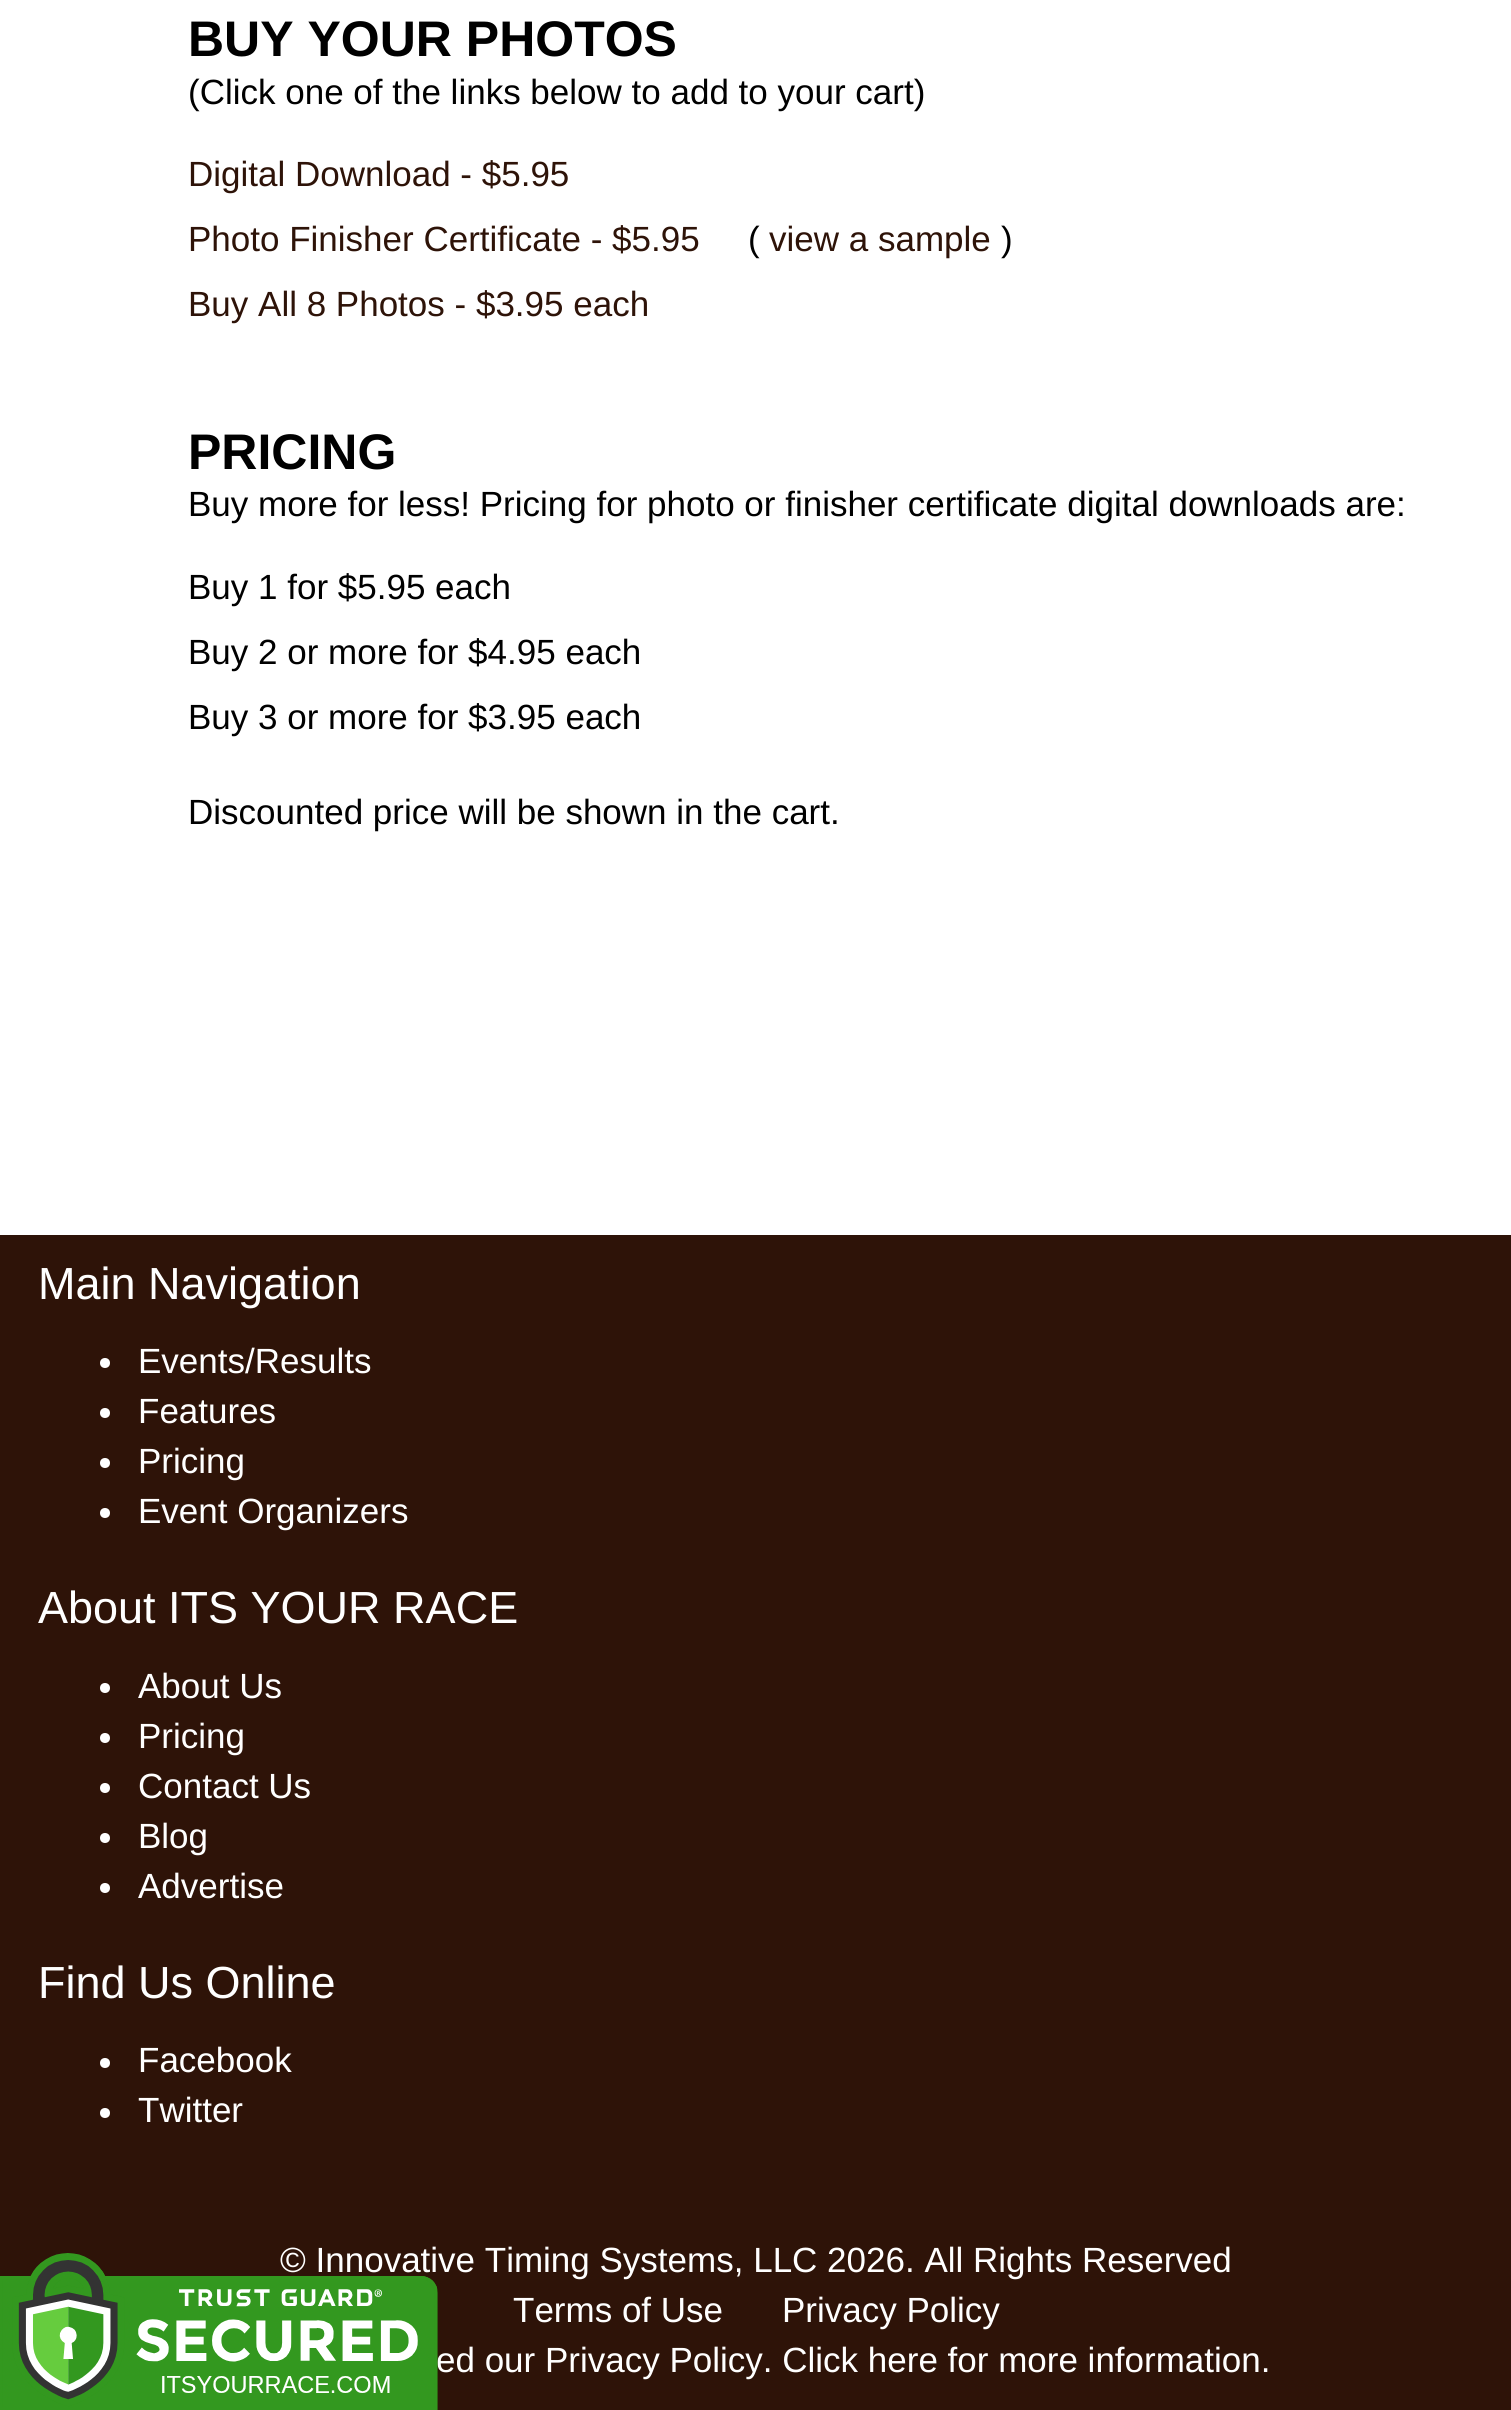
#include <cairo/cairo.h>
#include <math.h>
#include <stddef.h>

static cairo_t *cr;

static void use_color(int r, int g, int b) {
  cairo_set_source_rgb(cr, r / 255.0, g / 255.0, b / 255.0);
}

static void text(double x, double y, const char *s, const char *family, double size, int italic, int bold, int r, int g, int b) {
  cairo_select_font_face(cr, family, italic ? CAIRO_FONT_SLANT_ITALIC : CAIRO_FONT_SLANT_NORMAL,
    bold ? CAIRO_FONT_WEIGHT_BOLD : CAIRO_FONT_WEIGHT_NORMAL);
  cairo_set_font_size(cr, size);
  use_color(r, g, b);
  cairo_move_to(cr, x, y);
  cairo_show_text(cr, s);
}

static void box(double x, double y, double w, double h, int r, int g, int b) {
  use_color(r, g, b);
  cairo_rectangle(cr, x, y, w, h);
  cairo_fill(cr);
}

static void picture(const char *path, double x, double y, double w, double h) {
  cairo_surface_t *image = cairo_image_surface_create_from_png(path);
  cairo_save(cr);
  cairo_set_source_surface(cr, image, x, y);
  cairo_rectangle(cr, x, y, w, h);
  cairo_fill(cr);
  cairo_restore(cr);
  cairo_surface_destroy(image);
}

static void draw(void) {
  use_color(255, 255, 255);
  cairo_paint(cr);
  box(0, 1235, 1511, 1175, 46, 19, 8);
  use_color(255, 255, 255);
  cairo_arc(cr, 105, 1363, 5, 0, 2 * M_PI);
  cairo_fill(cr);
  cairo_arc(cr, 105, 1413, 5, 0, 2 * M_PI);
  cairo_fill(cr);
  cairo_arc(cr, 105, 1463, 5, 0, 2 * M_PI);
  cairo_fill(cr);
  cairo_arc(cr, 105, 1513, 5, 0, 2 * M_PI);
  cairo_fill(cr);
  cairo_arc(cr, 105, 1688, 5, 0, 2 * M_PI);
  cairo_fill(cr);
  cairo_arc(cr, 105, 1738, 5, 0, 2 * M_PI);
  cairo_fill(cr);
  cairo_arc(cr, 105, 1788, 5, 0, 2 * M_PI);
  cairo_fill(cr);
  cairo_arc(cr, 105, 1838, 5, 0, 2 * M_PI);
  cairo_fill(cr);
  cairo_arc(cr, 105, 1888, 5, 0, 2 * M_PI);
  cairo_fill(cr);
  cairo_arc(cr, 105, 2063, 5, 0, 2 * M_PI);
  cairo_fill(cr);
  cairo_arc(cr, 105, 2113, 5, 0, 2 * M_PI);
  cairo_fill(cr);
  text(188, 56, "BUY YOUR PHOTOS", "Liberation Sans", 50, 0, 1, 0, 0, 0);
  text(188, 104, "(Click one of the links below to add to your cart)", "Liberation Sans", 35, 0, 0, 0, 0, 0);
  text(188, 186, "Digital Download - $5.95", "Liberation Sans", 35, 0, 0, 46, 19, 8);
  text(188, 251, "Photo Finisher Certificate - $5.95", "Liberation Sans", 35, 0, 0, 46, 19, 8);
  text(748, 251, "(", "Liberation Sans", 35, 0, 0, 0, 0, 0);
  text(769, 251, "view a sample", "Liberation Sans", 35, 0, 0, 46, 19, 8);
  text(1001, 251, ")", "Liberation Sans", 35, 0, 0, 0, 0, 0);
  text(188, 316, "Buy All 8 Photos - $3.95 each", "Liberation Sans", 35, 0, 0, 46, 19, 8);
  text(188, 469, "PRICING", "Liberation Sans", 50, 0, 1, 0, 0, 0);
  text(188, 516, "Buy more for less! Pricing for photo or finisher certificate digital downloads are:", "Liberation Sans", 35, 0, 0, 0, 0, 0);
  text(188, 599, "Buy 1 for $5.95 each", "Liberation Sans", 35, 0, 0, 0, 0, 0);
  text(188, 664, "Buy 2 or more for $4.95 each", "Liberation Sans", 35, 0, 0, 0, 0, 0);
  text(188, 729, "Buy 3 or more for $3.95 each", "Liberation Sans", 35, 0, 0, 0, 0, 0);
  text(188, 824, "Discounted price will be shown in the cart.", "Liberation Sans", 35, 0, 0, 0, 0, 0);
  text(38, 1299, "Main Navigation", "Liberation Sans", 45, 0, 0, 255, 255, 255);
  text(138, 1373, "Events/Results", "Liberation Sans", 35, 0, 0, 255, 255, 255);
  text(138, 1423, "Features", "Liberation Sans", 35, 0, 0, 255, 255, 255);
  text(138, 1473, "Pricing", "Liberation Sans", 35, 0, 0, 255, 255, 255);
  text(138, 1523, "Event Organizers", "Liberation Sans", 35, 0, 0, 255, 255, 255);
  text(38, 1623, "About ITS YOUR RACE", "Liberation Sans", 45, 0, 0, 255, 255, 255);
  text(138, 1698, "About Us", "Liberation Sans", 35, 0, 0, 255, 255, 255);
  text(138, 1748, "Pricing", "Liberation Sans", 35, 0, 0, 255, 255, 255);
  text(138, 1798, "Contact Us", "Liberation Sans", 35, 0, 0, 255, 255, 255);
  text(138, 1848, "Blog", "Liberation Sans", 35, 0, 0, 255, 255, 255);
  text(138, 1898, "Advertise", "Liberation Sans", 35, 0, 0, 255, 255, 255);
  text(38, 1998, "Find Us Online", "Liberation Sans", 45, 0, 0, 255, 255, 255);
  text(138, 2072, "Facebook", "Liberation Sans", 35, 0, 0, 255, 255, 255);
  text(138, 2122, "Twitter", "Liberation Sans", 35, 0, 0, 255, 255, 255);
  text(280, 2272, "© Innovative Timing Systems, LLC 2026. All Rights Reserved", "Liberation Sans", 35, 0, 0, 255, 255, 255);
  text(513, 2322, "Terms of Use", "Liberation Sans", 35, 0, 0, 255, 255, 255);
  text(782, 2322, "Privacy Policy", "Liberation Sans", 35, 0, 0, 255, 255, 255);
  text(436, 2372, "ed our Privacy Policy. Click here for more information.", "Liberation Sans", 35, 0, 0, 255, 255, 255);
  picture("img_01.png", 0, 2253, 438, 157);
}

int main(void) {
  cairo_surface_t *surface = cairo_image_surface_create(CAIRO_FORMAT_RGB24, 1511, 2410);
  cr = cairo_create(surface);
  cairo_font_options_t *options = cairo_font_options_create();
  cairo_font_options_set_hint_metrics(options, CAIRO_HINT_METRICS_OFF);
  cairo_font_options_set_hint_style(options, CAIRO_HINT_STYLE_NONE);
  cairo_set_font_options(cr, options);
  cairo_set_miter_limit(cr, 4);
  draw();
  cairo_surface_write_to_png(surface, "out.png");
  cairo_font_options_destroy(options);
  cairo_destroy(cr);
  cairo_surface_destroy(surface);
  return 0;
}
